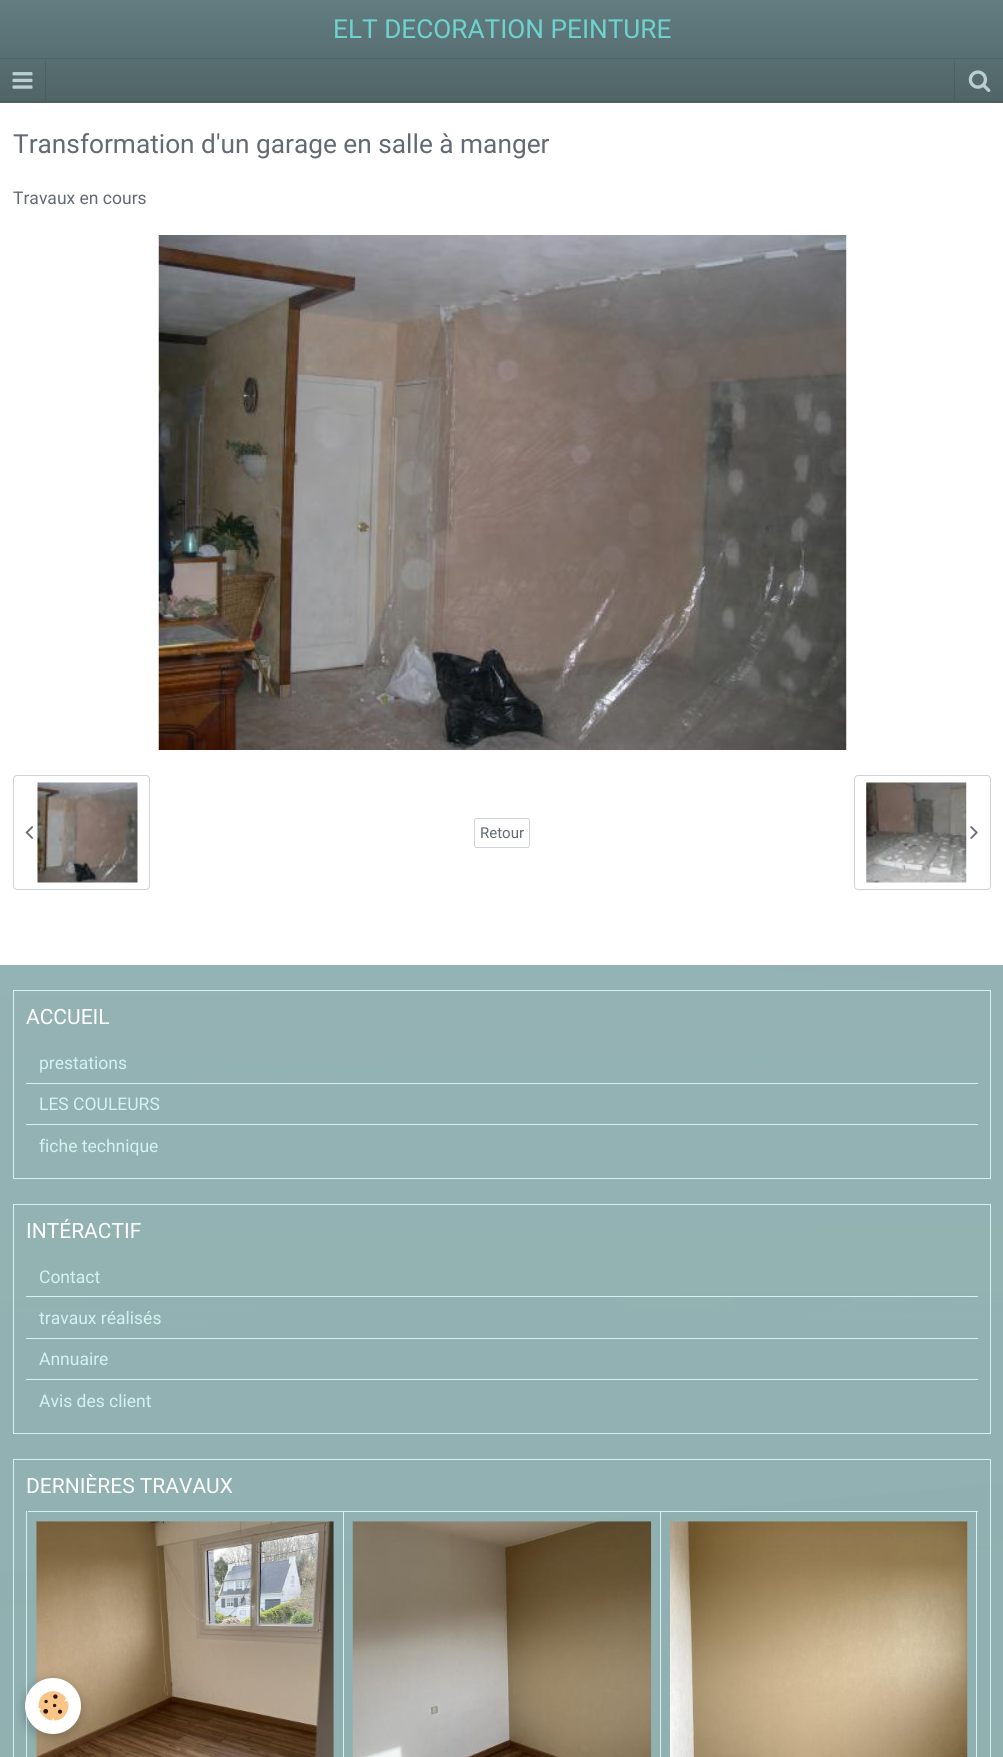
#include <cairo/cairo.h>
#include <math.h>
#include <stddef.h>

static cairo_t *cr;

static void use_color(int r, int g, int b) {
  cairo_set_source_rgb(cr, r / 255.0, g / 255.0, b / 255.0);
}

static void text(double x, double y, const char *s, const char *family, double size, int italic, int bold, int r, int g, int b) {
  cairo_select_font_face(cr, family, italic ? CAIRO_FONT_SLANT_ITALIC : CAIRO_FONT_SLANT_NORMAL,
    bold ? CAIRO_FONT_WEIGHT_BOLD : CAIRO_FONT_WEIGHT_NORMAL);
  cairo_set_font_size(cr, size);
  use_color(r, g, b);
  cairo_move_to(cr, x, y);
  cairo_show_text(cr, s);
}

static void box(double x, double y, double w, double h, int r, int g, int b) {
  use_color(r, g, b);
  cairo_rectangle(cr, x, y, w, h);
  cairo_fill(cr);
}

static void round_rect(double x, double y, double w, double h, double r) {
  cairo_new_sub_path(cr);
  cairo_arc(cr, x + w - r, y + h - r, r, 0, M_PI / 2);
  cairo_arc(cr, x + r, y + h - r, r, M_PI / 2, M_PI);
  cairo_arc(cr, x + r, y + r, r, M_PI, 1.5 * M_PI);
  cairo_arc(cr, x + w - r, y + r, r, 1.5 * M_PI, 2 * M_PI);
  cairo_close_path(cr);
}

static void shadow(double x, double y, double w, double h, double r, double blur, double alpha) {
  cairo_push_group_with_content(cr, CAIRO_CONTENT_ALPHA);
  cairo_set_operator(cr, CAIRO_OPERATOR_SOURCE);
  for (int i = 15; i >= -15 && fmin(w, h) + blur * i / 3 > 0; i -= 2) {
    double e = blur * i / 6;
    cairo_set_source_rgba(cr, 0, 0, 0, alpha * erfc((i - 1) / 8.5) / 2);
    round_rect(x - e, y - e, w + 2 * e, h + 2 * e, fmax(0, fmin(r + e + blur * .6, fmin(w, h) / 2 + e)));
    cairo_fill(cr);
  }
  cairo_pattern_t *soft = cairo_pop_group(cr);
  cairo_mask(cr, soft);
  cairo_pattern_destroy(soft);
}

static void picture(const char *path, double x, double y, double w, double h) {
  cairo_surface_t *image = cairo_image_surface_create_from_png(path);
  cairo_save(cr);
  cairo_set_source_surface(cr, image, x, y);
  cairo_rectangle(cr, x, y, w, h);
  cairo_fill(cr);
  cairo_restore(cr);
  cairo_surface_destroy(image);
}

static void draw(void) {
  cairo_pattern_t *gradient;
  use_color(236, 249, 253);
  cairo_paint(cr);
  picture("img_01.png", 0, 965, 1003, 792);
  gradient = cairo_pattern_create_linear(502, 0, 502, 103);
  cairo_pattern_add_color_stop_rgba(gradient, 0, 0.388, 0.49, 0.506, 1);
  cairo_pattern_add_color_stop_rgba(gradient, 1, 0.31, 0.392, 0.404, 1);
  cairo_set_source(cr, gradient);
  cairo_pattern_destroy(gradient);
  cairo_rectangle(cr, 0, 0, 1003, 103);
  cairo_fill(cr);
  box(0, 58, 1003, 1, 79, 100, 103);
  box(0, 101, 1003, 1, 71, 90, 93);
  cairo_set_source_rgba(cr, 0, 0, 0, 0.1);
  cairo_new_path(cr);
  cairo_move_to(cr, 46, 59);
  cairo_line_to(cr, 46, 101);
  cairo_line_to(cr, 45, 100);
  cairo_line_to(cr, 45, 60);
  cairo_close_path(cr);
  cairo_fill(cr);
  picture("img_02.png", 12, 72, 21, 17);
  cairo_rectangle(cr, 954, 59, 1, 42);
  cairo_fill(cr);
  picture("img_03.png", 968, 70, 23, 22);
  box(0, 103, 1003, 862, 255, 255, 255);
  picture("img_04.png", 158, 235, 689, 515);
  picture("img_05.png", 25, 826, 9, 13);
  picture("img_06.png", 37, 782, 101, 101);
  round_rect(13.5, 775.5, 136, 114, 3.5);
  use_color(209, 210, 213);
  cairo_set_line_width(cr, 1);
  cairo_stroke(cr);
  round_rect(474.5, 818.5, 55, 29, 2);
  cairo_stroke(cr);
  picture("img_07.png", 866, 782, 101, 101);
  picture("img_08.png", 970, 826, 8, 13);
  round_rect(854.5, 775.5, 136, 114, 3.5);
  cairo_stroke(cr);
  cairo_set_source_rgba(cr, 0.486, 0.647, 0.647, 0.7);
  cairo_rectangle(cr, 0, 965, 1003, 792);
  cairo_fill(cr);
  cairo_rectangle(cr, 13.5, 990.5, 977, 188);
  use_color(212, 242, 241);
  cairo_stroke(cr);
  box(26, 1083, 952, 1, 212, 242, 241);
  box(26, 1124, 952, 1, 212, 242, 241);
  cairo_rectangle(cr, 13.5, 1204.5, 977, 229);
  cairo_stroke(cr);
  box(26, 1296, 952, 1, 212, 242, 241);
  box(26, 1338, 952, 1, 212, 242, 241);
  box(26, 1379, 952, 1, 212, 242, 241);
  cairo_rectangle(cr, 13.5, 1459.5, 977, 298);
  cairo_stroke(cr);
  box(26, 1511, 1, 246, 212, 242, 241);
  box(28, 1511, 950, 1, 212, 242, 241);
  box(343, 1511, 1, 246, 212, 242, 241);
  picture("img_09.png", 36, 1521, 298, 236);
  box(660, 1511, 1, 246, 212, 242, 241);
  picture("img_10.png", 352, 1521, 300, 236);
  box(976, 1511, 1, 246, 212, 242, 241);
  picture("img_11.png", 670, 1521, 298, 236);
  use_color(0, 0, 0);
  shadow(25, 1681, 56, 57, 28, 6, 0.24);
  use_color(255, 255, 255);
  cairo_arc(cr, 53, 1706, 28, 0, 2 * M_PI);
  cairo_fill(cr);
  picture("img_12.png", 38, 1691, 31, 30);
  text(333, 38, "ELT DECORATION PEINTURE", "Roboto", 26.2, 0, 0, 110, 211, 207);
  text(13, 153, "Transformation d'un garage en salle à manger", "Roboto", 26.25, 0, 0, 100, 106, 115);
  text(13, 204, "Travaux en cours", "Roboto", 17.5, 0, 0, 100, 106, 115);
  text(480, 838, "Retour", "Roboto", 15, 0, 0, 100, 106, 115);
  text(26, 1024, "ACCUEIL", "Roboto", 21, 0, 0, 255, 255, 255);
  text(39, 1069, "prestations", "Roboto", 17.5, 0, 0, 212, 242, 241);
  text(39, 1110, "LES COULEURS", "Roboto", 17.5, 0, 0, 212, 242, 241);
  text(39, 1152, "fiche technique", "Roboto", 17.5, 0, 0, 212, 242, 241);
  text(26, 1238, "INTÉRACTIF", "Roboto", 21, 0, 0, 255, 255, 255);
  text(39, 1283, "Contact", "Roboto", 17.5, 0, 0, 212, 242, 241);
  text(39, 1324, "travaux réalisés", "Roboto", 17.5, 0, 0, 212, 242, 241);
  text(39, 1365, "Annuaire", "Roboto", 17.5, 0, 0, 212, 242, 241);
  text(39, 1407, "Avis des client", "Roboto", 17.5, 0, 0, 212, 242, 241);
  text(26, 1493, "DERNIÈRES TRAVAUX", "Roboto", 21, 0, 0, 255, 255, 255);
}

int main(void) {
  cairo_surface_t *surface = cairo_image_surface_create(CAIRO_FORMAT_RGB24, 1003, 1757);
  cr = cairo_create(surface);
  cairo_font_options_t *options = cairo_font_options_create();
  cairo_font_options_set_hint_metrics(options, CAIRO_HINT_METRICS_OFF);
  cairo_font_options_set_hint_style(options, CAIRO_HINT_STYLE_NONE);
  cairo_set_font_options(cr, options);
  cairo_set_miter_limit(cr, 4);
  draw();
  cairo_surface_write_to_png(surface, "out.png");
  cairo_font_options_destroy(options);
  cairo_destroy(cr);
  cairo_surface_destroy(surface);
  return 0;
}
